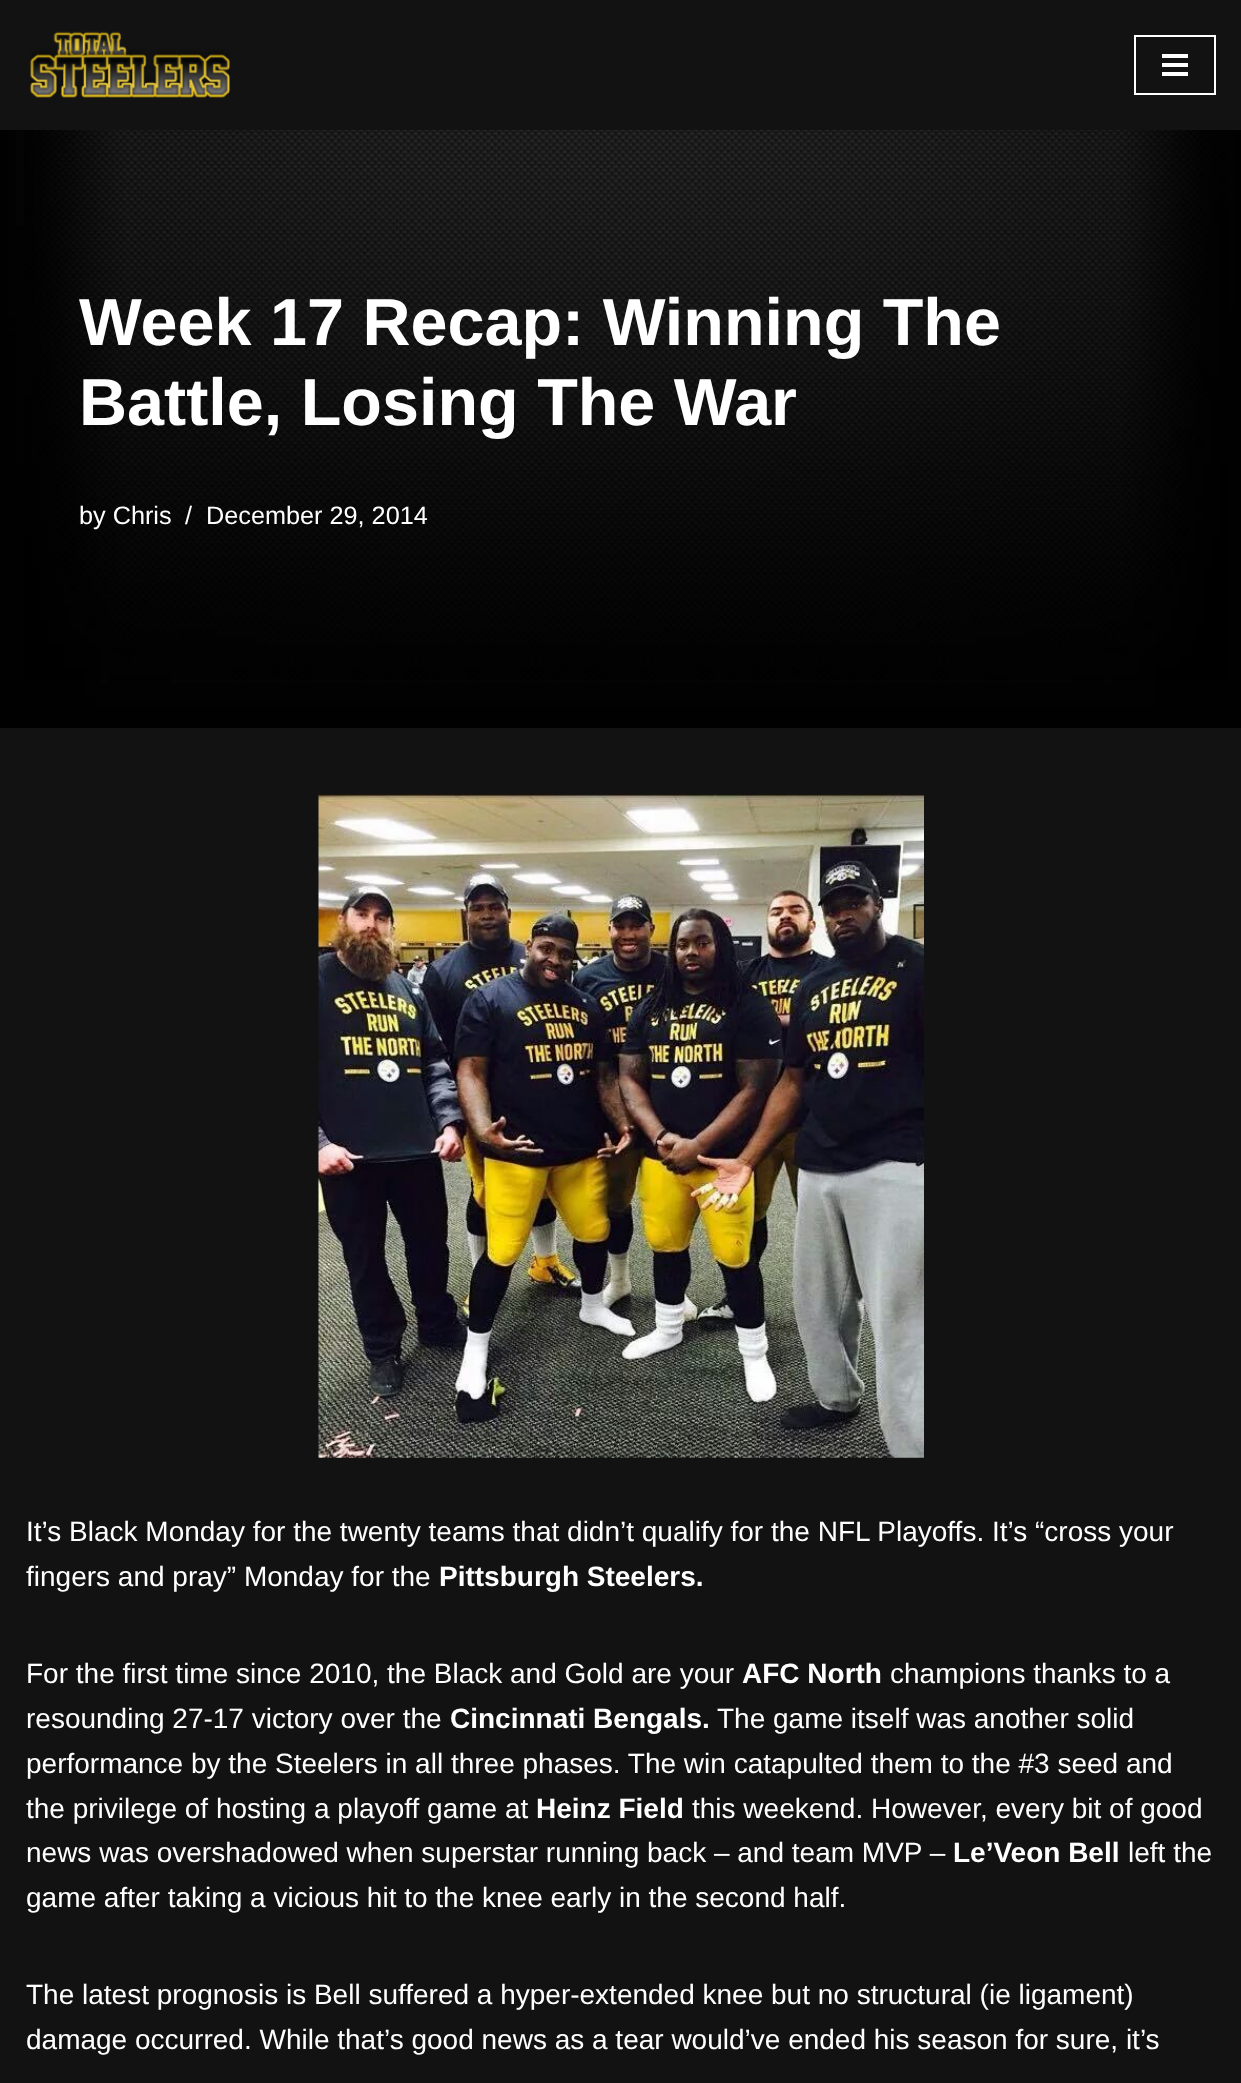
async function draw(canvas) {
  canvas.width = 1241;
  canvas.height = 2083;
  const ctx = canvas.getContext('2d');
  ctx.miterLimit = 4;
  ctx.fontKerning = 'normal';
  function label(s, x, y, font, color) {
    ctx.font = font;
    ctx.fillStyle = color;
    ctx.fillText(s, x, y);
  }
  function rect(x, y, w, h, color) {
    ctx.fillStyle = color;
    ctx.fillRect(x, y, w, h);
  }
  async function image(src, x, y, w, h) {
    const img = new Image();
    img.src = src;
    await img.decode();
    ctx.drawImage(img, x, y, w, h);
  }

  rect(0, 0, 1241, 2083, '#121212');
  await image('assets/img1.png', 0, 130, 1241, 598);
  await image('assets/img2.png', 30, 31, 200, 67);
  ctx.strokeStyle = '#fff';
  ctx.lineWidth = 2;
  ctx.strokeRect(1135, 36, 80, 58);
  rect(1162, 54, 26, 4, '#fff');
  rect(1162, 63, 26, 4, '#fff');
  rect(1162, 72, 26, 4, '#fff');
  rect(24, 130, 1203, 550, '#00000080');
  label('Week 17 Recap: Winning The', 79, 345, 'bold 66.5px Liberation Sans', '#fff');
  label('Battle, Losing The War', 79, 425, 'bold 66.5px Liberation Sans', '#fff');
  label('by Chris', 79, 524, '25.25px Liberation Sans', '#fff');
  label('/', 185, 524, '25.25px Liberation Sans', '#fff');
  label('December 29, 2014', 206, 524, '25.25px Liberation Sans', '#fff');
  await image('assets/img3.png', 318, 794, 606, 664);
  label('It’s Black Monday for the twenty teams that didn’t qualify for the NFL Playoffs. It’s “cross your', 26, 1541, '28px Liberation Sans', '#fff');
  label('fingers and pray” Monday for the', 26, 1586, '28px Liberation Sans', '#fff');
  label('Pittsburgh Steelers.', 439, 1586, 'bold 28px Liberation Sans', '#fff');
  label('For the first time since 2010, the Black and Gold are your', 26, 1683, '28px Liberation Sans', '#fff');
  label('AFC North', 742, 1683, 'bold 28px Liberation Sans', '#fff');
  label('champions thanks to a', 890, 1683, '28px Liberation Sans', '#fff');
  label('resounding 27-17 victory over the', 26, 1728, '28px Liberation Sans', '#fff');
  label('Cincinnati Bengals.', 450, 1728, 'bold 28px Liberation Sans', '#fff');
  label('The game itself was another solid', 717, 1728, '28px Liberation Sans', '#fff');
  label('performance by the Steelers in all three phases. The win catapulted them to the #3 seed and', 26, 1773, '28px Liberation Sans', '#fff');
  label('the privilege of hosting a playoff game at', 26, 1818, '28px Liberation Sans', '#fff');
  label('Heinz Field', 536, 1818, 'bold 28px Liberation Sans', '#fff');
  label('this weekend. However, every bit of good', 692, 1818, '28px Liberation Sans', '#fff');
  label('news was overshadowed when superstar running back – and team MVP –', 26, 1862, '28px Liberation Sans', '#fff');
  label('Le’Veon Bell', 953, 1862, 'bold 28px Liberation Sans', '#fff');
  label('left the', 1128, 1862, '28px Liberation Sans', '#fff');
  label('game after taking a vicious hit to the knee early in the second half.', 26, 1907, '28px Liberation Sans', '#fff');
  label('The latest prognosis is Bell suffered a hyper-extended knee but no structural (ie ligament)', 26, 2004, '28px Liberation Sans', '#fff');
  label('damage occurred. While that’s good news as a tear would’ve ended his season for sure, it’s', 26, 2049, '28px Liberation Sans', '#fff');
}

draw(document.querySelector('canvas'));
